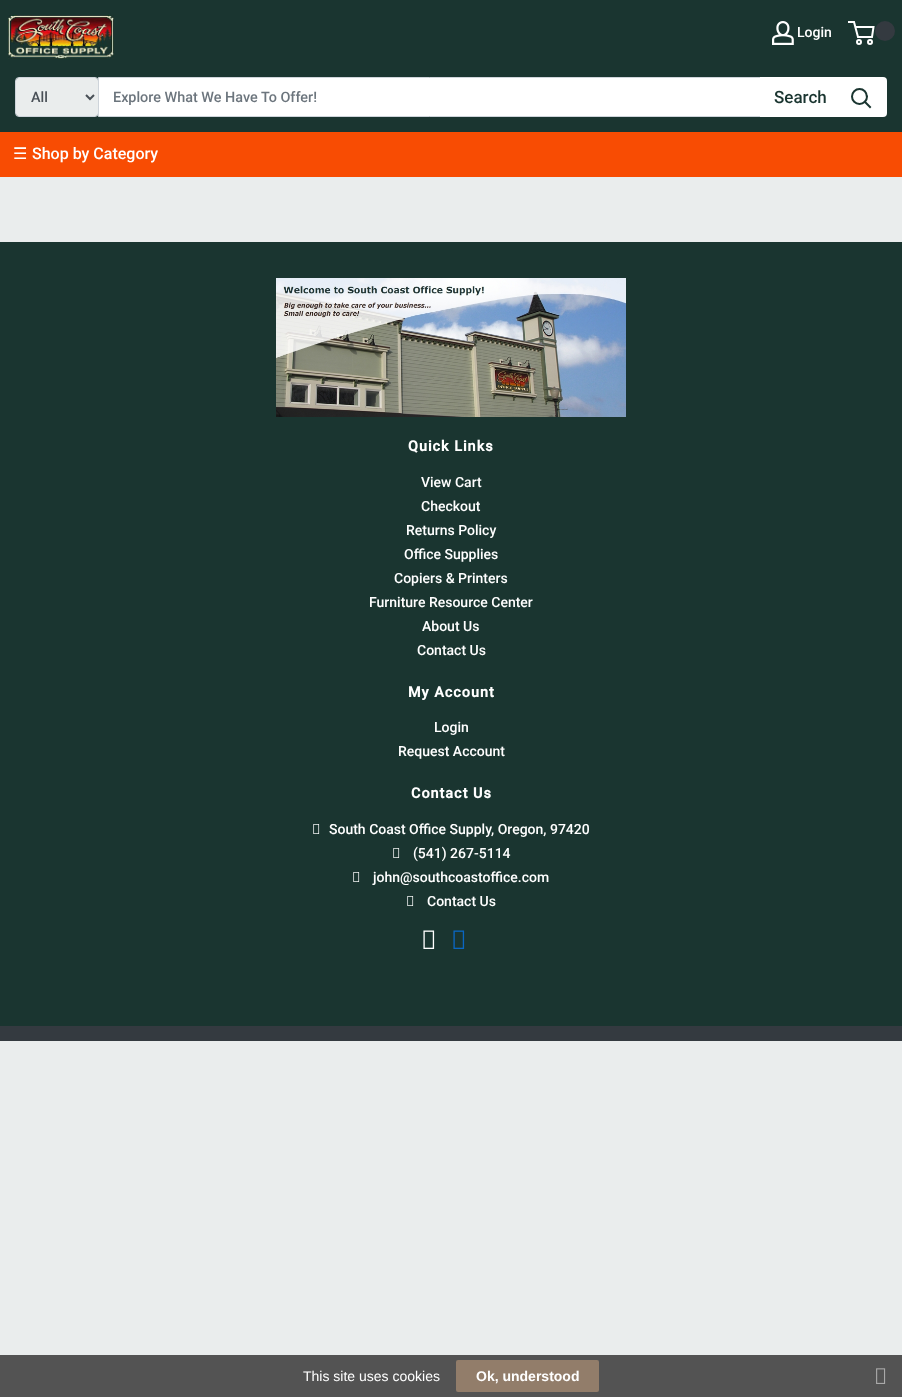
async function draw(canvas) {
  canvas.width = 902;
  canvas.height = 1397;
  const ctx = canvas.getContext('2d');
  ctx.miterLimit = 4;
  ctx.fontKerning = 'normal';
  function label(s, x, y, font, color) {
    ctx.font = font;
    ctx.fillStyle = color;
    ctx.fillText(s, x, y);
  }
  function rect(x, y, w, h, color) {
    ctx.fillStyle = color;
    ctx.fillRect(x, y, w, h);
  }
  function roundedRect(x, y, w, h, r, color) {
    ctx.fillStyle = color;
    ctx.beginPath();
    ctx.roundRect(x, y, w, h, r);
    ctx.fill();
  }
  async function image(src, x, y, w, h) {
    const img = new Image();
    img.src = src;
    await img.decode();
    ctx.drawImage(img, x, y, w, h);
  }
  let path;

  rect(0, 0, 902, 1397, '#eaeded');
  rect(0, 0, 902, 132, '#1a3530');
  await image('assets/img1.png', 772, 21, 22, 24);
  label('Login', 797, 37, '500 14px Roboto', '#fff');
  path = new Path2D('M855.5 27H873.5L872 37H858L854 22H848');
  ctx.strokeStyle = '#fff';
  ctx.lineWidth = 2;
  ctx.stroke(path);
  ctx.fillStyle = '#343a40';
  ctx.beginPath();
  ctx.arc(885, 31, 10, 0, 2 * Math.PI);
  ctx.fill();
  ctx.beginPath();
  ctx.arc(859, 42, 2, 0, 2 * Math.PI);
  ctx.stroke();
  ctx.beginPath();
  ctx.arc(870, 42, 2, 0, 2 * Math.PI);
  ctx.stroke();
  await image('assets/img2.png', 8, 15, 106, 44);
  roundedRect(16, 78, 82, 38, 2.5, '#eaeded');
  ctx.beginPath();
  ctx.roundRect(15.5, 77.5, 83, 39, 3.5);
  ctx.strokeStyle = '#ced4da';
  ctx.lineWidth = 1;
  ctx.stroke();
  path = new Path2D('M86 95L90 99L94 95');
  ctx.strokeStyle = '#495057';
  ctx.lineWidth = 2;
  ctx.stroke(path);
  label('All', 31, 102, '500 14.4px Roboto', '#495057');
  ctx.fillStyle = '#fff';
  ctx.beginPath();
  ctx.rect(98.5, 77.5, 662, 39);
  ctx.fill();
  ctx.strokeStyle = '#ced4da';
  ctx.lineWidth = 1;
  ctx.stroke();
  label('Explore What We Have To Offer!', 113, 102, '500 14.4px Roboto', '#6c757d');
  ctx.fillStyle = '#fff';
  ctx.beginPath();
  ctx.roundRect(760, 77, 127, 40, [0, 4, 4, 0]);
  ctx.fill();
  label('Search', 774, 103, '500 17px Roboto', '#1a3530');
  path = new Path2D('M870 107L865 102');
  ctx.strokeStyle = '#1a3530';
  ctx.lineWidth = 2;
  ctx.lineCap = 'square';
  ctx.stroke(path);
  ctx.beginPath();
  ctx.arc(859.5, 96.5, 7.5, 0, 2 * Math.PI);
  ctx.stroke();
  rect(0, 132, 902, 45, '#f84c03');
  label('☰', 13, 159, '16px DejaVu Sans', '#fff');
  label('Shop by Category', 32, 159, '500 16px Roboto', '#fff');
  rect(0, 242, 902, 784, '#1a3530');
  await image('assets/img3.png', 276, 278, 350, 139);
  ctx.letterSpacing = '1px';
  label('Quick Links', 408, 451, 'bold 14.4px Roboto', '#fff');
  ctx.letterSpacing = '0px';
  label('View Cart', 421, 487, '500 14px Roboto', '#fff');
  label('Checkout', 421, 511, '500 14px Roboto', '#fff');
  label('Returns Policy', 406, 535, '500 14px Roboto', '#fff');
  label('Office Supplies', 404, 559, '500 14px Roboto', '#fff');
  label('Copiers & Printers', 394, 583, '500 14px Roboto', '#fff');
  label('Furniture Resource Center', 369, 607, '500 14px Roboto', '#fff');
  label('About Us', 422, 631, '500 14px Roboto', '#fff');
  label('Contact Us', 417, 655, '500 14px Roboto', '#fff');
  ctx.letterSpacing = '1px';
  label('My Account', 408, 697, 'bold 14.4px Roboto', '#fff');
  ctx.letterSpacing = '0px';
  label('Login', 434, 732, '500 14px Roboto', '#fff');
  label('Request Account', 398, 756, '500 14px Roboto', '#fff');
  ctx.letterSpacing = '1px';
  label('Contact Us', 411, 798, 'bold 14.4px Roboto', '#fff');
  await image('assets/img4.png', 313, 824, 7, 10);
  ctx.letterSpacing = '0px';
  label('South Coast Office Supply, Oregon, 97420', 329, 834, '500 14px Roboto', '#fff');
  await image('assets/img4.png', 393, 848, 7, 10);
  label('(541) 267-5114', 413, 858, '500 14px Roboto', '#fff');
  await image('assets/img4.png', 353, 872, 7, 10);
  label('john@southcoastoffice.com', 373, 882, '500 14px Roboto', '#fff');
  await image('assets/img4.png', 407, 896, 7, 10);
  label('Contact Us', 427, 906, '500 14px Roboto', '#fff');
  await image('assets/img5.png', 423, 930, 12, 19);
  await image('assets/img6.png', 453, 930, 12, 19);
  rect(0, 1026, 902, 15, '#343a40');
  rect(0, 1355, 902, 42, '#535353');
  label('This site uses cookies', 303, 1381, '14px Liberation Sans', '#fff');
  roundedRect(456, 1360, 143, 32, 2, '#927d6a');
  label('Ok, understood', 476, 1381, 'bold 14px Liberation Sans', '#fff');
  await image('assets/img7.png', 876, 1368, 10, 16);
}

draw(document.querySelector('canvas'));
